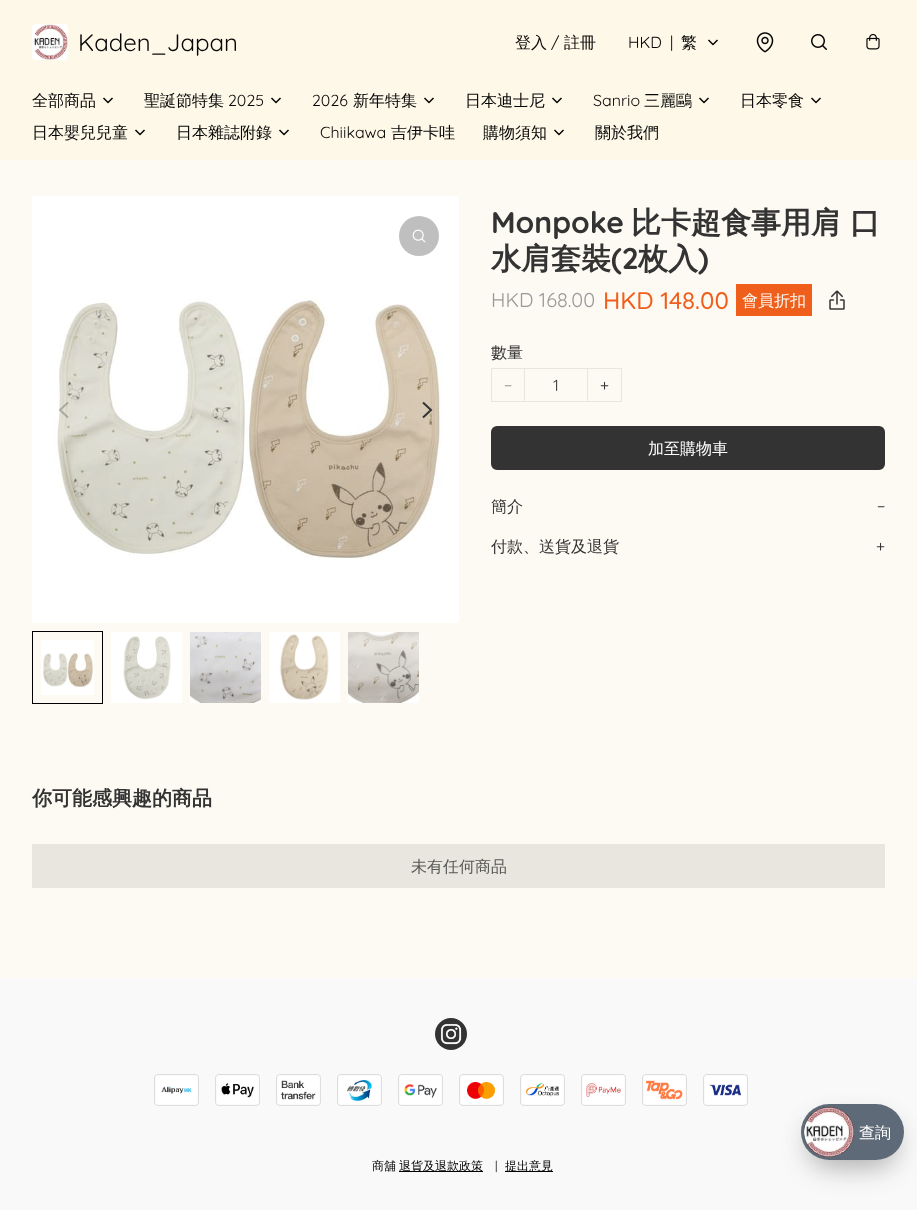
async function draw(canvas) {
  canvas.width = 917;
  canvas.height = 1210;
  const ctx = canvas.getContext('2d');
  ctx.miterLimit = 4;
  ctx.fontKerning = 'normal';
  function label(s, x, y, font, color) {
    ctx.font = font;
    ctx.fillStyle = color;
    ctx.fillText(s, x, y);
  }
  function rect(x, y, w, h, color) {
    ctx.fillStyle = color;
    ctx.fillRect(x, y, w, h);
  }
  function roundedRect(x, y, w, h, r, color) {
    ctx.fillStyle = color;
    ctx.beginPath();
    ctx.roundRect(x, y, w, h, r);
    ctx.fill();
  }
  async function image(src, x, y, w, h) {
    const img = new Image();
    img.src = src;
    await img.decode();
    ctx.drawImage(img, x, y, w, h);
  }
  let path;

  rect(0, 0, 917, 1210, '#fcfaf2');
  rect(0, 0, 917, 160, '#fef8e8');
  await image('assets/img1.png', 32, 24, 36, 36);
  label('Kaden_Japan', 78, 51, '24px Quicksand', '#060606');
  label('登入', 515, 48, '500 16px WenQuanYi Zen Hei', '#060606');
  label('/', 551, 48, '16px Quicksand', '#060606');
  label('註冊', 564, 48, '500 16px WenQuanYi Zen Hei', '#060606');
  label('HKD', 628, 48, '16px Quicksand', '#060606');
  label('|', 670, 48, '16px Quicksand', '#060606');
  label('繁', 681, 48, '500 16px WenQuanYi Zen Hei', '#060606');
  path = new Path2D('M709 40.5L713 44.5L717 40.5');
  ctx.strokeStyle = '#060606';
  ctx.lineWidth = 1.5;
  ctx.lineCap = 'square';
  ctx.lineJoin = 'round';
  ctx.stroke(path);
  await image('assets/img2.png', 756, 32, 18, 21);
  await image('assets/img3.png', 811, 34, 16, 16);
  await image('assets/img4.png', 866, 33, 14, 17);
  label('全部商品', 32, 106, '500 16px WenQuanYi Zen Hei', '#060606');
  path = new Path2D('M104 98.5L108 102.5L112 98.5');
  ctx.stroke(path);
  label('聖誕節特集', 144, 106, '500 16px WenQuanYi Zen Hei', '#060606');
  label('2025', 228, 106, '16px Quicksand', '#060606');
  path = new Path2D('M272 98.5L276 102.5L280 98.5');
  ctx.stroke(path);
  label('2026', 312, 106, '16px Quicksand', '#060606');
  label('新年特集', 353, 106, '500 16px WenQuanYi Zen Hei', '#060606');
  path = new Path2D('M425 98.5L429 102.5L433 98.5');
  ctx.stroke(path);
  label('日本迪士尼', 465, 106, '500 16px WenQuanYi Zen Hei', '#060606');
  path = new Path2D('M553 98.5L557 102.5L561 98.5');
  ctx.stroke(path);
  label('Sanrio', 593, 106, '16px Quicksand', '#060606');
  label('三麗鷗', 644, 106, '500 16px WenQuanYi Zen Hei', '#060606');
  path = new Path2D('M700 98.5L704 102.5L708 98.5');
  ctx.stroke(path);
  label('日本零食', 740, 106, '500 16px WenQuanYi Zen Hei', '#060606');
  path = new Path2D('M812 98.5L816 102.5L820 98.5');
  ctx.stroke(path);
  label('日本嬰兒兒童', 32, 138, '500 16px WenQuanYi Zen Hei', '#060606');
  path = new Path2D('M136 130.5L140 134.5L144 130.5');
  ctx.stroke(path);
  label('日本雜誌附錄', 176, 138, '500 16px WenQuanYi Zen Hei', '#060606');
  path = new Path2D('M280 130.5L284 134.5L288 130.5');
  ctx.stroke(path);
  label('Chiikawa', 320, 138, '16px Quicksand', '#060606');
  label('吉伊卡哇', 391, 138, '500 16px WenQuanYi Zen Hei', '#060606');
  label('購物須知', 483, 138, '500 16px WenQuanYi Zen Hei', '#060606');
  path = new Path2D('M555 130.5L559 134.5L563 130.5');
  ctx.stroke(path);
  label('關於我們', 595, 138, '500 16px WenQuanYi Zen Hei', '#060606');
  await image('assets/img5.png', 32, 196, 427, 427);
  ctx.fillStyle = '#bfbfbf';
  ctx.beginPath();
  ctx.arc(419, 236, 20, 0, 2 * Math.PI);
  ctx.fill();
  await image('assets/img6.png', 412, 229, 14, 14);
  path = new Path2D('M68 402.5L60 410L68 417.5');
  ctx.strokeStyle = '#3333334d';
  ctx.lineWidth = 2;
  ctx.lineCap = 'butt';
  ctx.lineJoin = 'miter';
  ctx.stroke(path);
  path = new Path2D('M423 402.5L431 410L423 417.5');
  ctx.strokeStyle = '#333';
  ctx.stroke(path);
  ctx.strokeStyle = '#000';
  ctx.lineWidth = 1;
  ctx.strokeRect(32.5, 631.5, 70, 72);
  await image('assets/img7.png', 41, 640, 53, 55);
  await image('assets/img8.png', 111, 632, 71, 71);
  await image('assets/img9.png', 190, 632, 71, 71);
  await image('assets/img10.png', 269, 632, 71, 71);
  await image('assets/img11.png', 348, 632, 71, 71);
  label('Monpoke', 491, 233, 'bold 30px Quicksand', '#333');
  label('比卡超食事用肩 口', 631, 233, 'bold 30px WenQuanYi Zen Hei', '#333');
  label('水肩套裝', 491, 269, 'bold 30px WenQuanYi Zen Hei', '#333');
  label('(2', 611, 269, 'bold 30px Quicksand', '#333');
  label('枚入', 638, 269, 'bold 30px WenQuanYi Zen Hei', '#333');
  label(')', 698, 269, 'bold 30px Quicksand', '#333');
  label('HKD 168.00', 491, 307, '20px Quicksand', '#999');
  label('HKD 148.00', 603, 309, '500 24px Quicksand', '#f05e1c');
  rect(736, 284, 76, 32, '#f05e1c');
  label('會員折扣', 742, 306, '500 16px WenQuanYi Zen Hei', '#fcfaf2');
  await image('assets/img12.png', 829, 290, 16, 20);
  label('數量', 491, 358, '500 16px WenQuanYi Zen Hei', '#333');
  ctx.strokeStyle = '#e8e6df';
  ctx.strokeRect(491.5, 368.5, 130, 33);
  label('−', 504, 391, '16px Quicksand', '#989793');
  rect(587, 369, 1, 32, '#e8e6df');
  rect(524, 369, 1, 32, '#e8e6df');
  label('1', 553, 391, '16px Quicksand', '#333');
  label('+', 600, 391, '16px Quicksand', '#333');
  ctx.beginPath();
  ctx.roundRect(492, 427, 392, 42, 5);
  ctx.fill();
  ctx.strokeStyle = '#333';
  ctx.lineWidth = 2;
  ctx.stroke();
  label('加至購物車', 648, 454, '500 16px WenQuanYi Zen Hei', '#fff');
  label('簡介', 491, 512, '500 16px WenQuanYi Zen Hei', '#333');
  label('−', 877, 512, '16px Quicksand', '#333');
  label('付款、送貨及退貨', 491, 552, '500 16px WenQuanYi Zen Hei', '#333');
  label('+', 876, 552, '16px Quicksand', '#333');
  label('你可能感興趣的商品', 32, 805, 'bold 20px WenQuanYi Zen Hei', '#333');
  rect(32, 844, 853, 44, '#e8e6df');
  label('未有任何商品', 411, 872, '500 16px WenQuanYi Zen Hei', '#575755');
  rect(0, 978, 917, 232, '#f9f9f9');
  ctx.fillStyle = '#333';
  ctx.beginPath();
  ctx.arc(451, 1034, 16, 0, 2 * Math.PI);
  ctx.fill();
  await image('assets/img13.png', 440, 1023, 22, 22);
  await image('assets/img14.png', 154, 1074, 45, 32);
  await image('assets/img15.png', 215, 1074, 45, 32);
  await image('assets/img16.png', 276, 1074, 45, 32);
  await image('assets/img17.png', 337, 1074, 45, 32);
  await image('assets/img18.png', 398, 1074, 45, 32);
  await image('assets/img19.png', 459, 1074, 45, 32);
  await image('assets/img20.png', 520, 1074, 45, 32);
  await image('assets/img21.png', 581, 1074, 45, 32);
  await image('assets/img22.png', 642, 1074, 45, 32);
  await image('assets/img23.png', 703, 1074, 45, 32);
  label('商舖', 372, 1170, '500 12px WenQuanYi Zen Hei', '#000');
  rect(399, 1171, 84, 1, '#000');
  label('退貨及退款政策', 399, 1170, '500 12px WenQuanYi Zen Hei', '#000');
  label('|', 495, 1170, '12px Quicksand', '#000');
  rect(505, 1171, 48, 1, '#000');
  label('提出意見', 505, 1170, '500 12px WenQuanYi Zen Hei', '#000');
  ctx.fillStyle = '#0000004d';
  ctx.filter = 'blur(15px)';
  ctx.beginPath();
  ctx.roundRect(811, 1129, 83, 36, 18);
  ctx.fill();
  ctx.filter = 'none';
  ctx.fillStyle = '#0000000d';
  ctx.filter = 'blur(10px)';
  ctx.beginPath();
  ctx.roundRect(801, 1109, 103, 56, 28);
  ctx.fill();
  ctx.filter = 'none';
  roundedRect(801, 1104, 103, 56, 28, '#5f6a78');
  await image('assets/img24.png', 804, 1107, 50, 50);
  label('查詢', 859, 1138, '500 16px WenQuanYi Zen Hei', '#fff');
}

draw(document.querySelector('canvas'));
